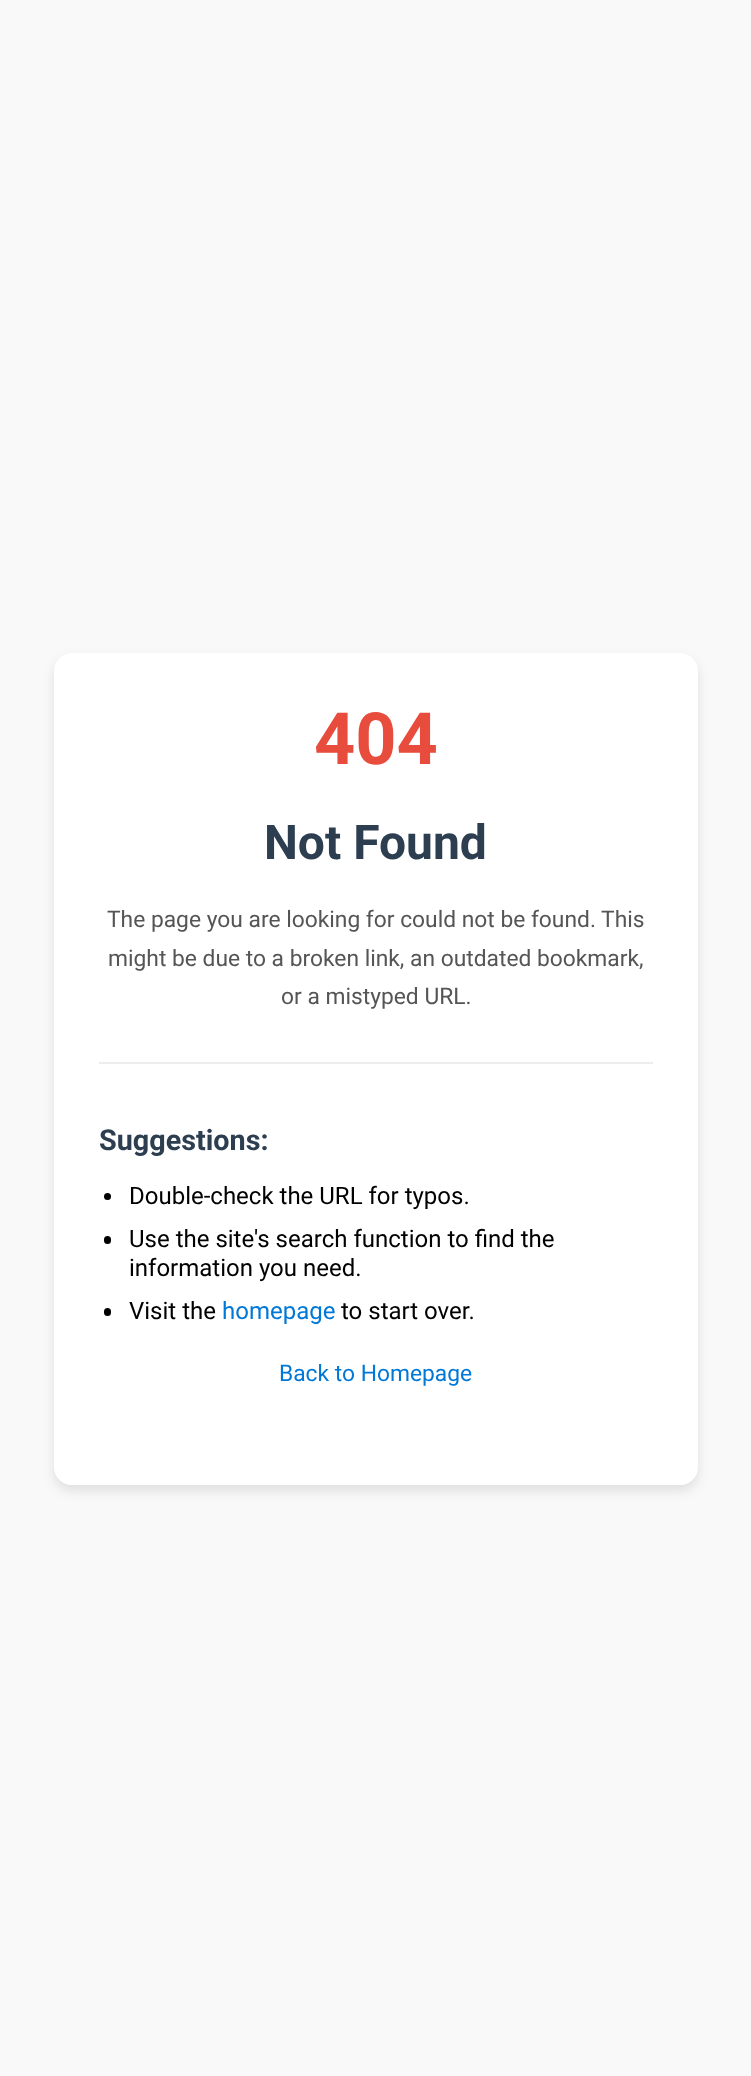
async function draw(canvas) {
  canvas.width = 751;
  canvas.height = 2076;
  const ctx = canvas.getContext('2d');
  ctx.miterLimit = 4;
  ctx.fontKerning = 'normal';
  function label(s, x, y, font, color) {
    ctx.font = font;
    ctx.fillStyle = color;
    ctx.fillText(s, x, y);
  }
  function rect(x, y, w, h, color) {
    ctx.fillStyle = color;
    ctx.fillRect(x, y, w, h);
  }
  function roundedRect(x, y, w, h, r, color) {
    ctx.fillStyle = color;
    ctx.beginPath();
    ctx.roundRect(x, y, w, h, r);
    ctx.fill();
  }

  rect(0, 0, 751, 2076, '#f9f9f9');
  ctx.fillStyle = '#0000001a';
  ctx.filter = 'blur(6px)';
  ctx.beginPath();
  ctx.roundRect(54, 659, 644, 832, 18);
  ctx.fill();
  ctx.filter = 'none';
  roundedRect(54, 653, 644, 832, 18, '#fff');
  label('404', 314, 764, 'bold 72px Roboto', '#e74c3c');
  label('Not Found', 264, 859, 'bold 48px Roboto', '#2c3e50');
  label('The page you are looking for could not be found. This', 107, 927, '22.8px Roboto', '#555');
  label('might be due to a broken link, an outdated bookmark,', 108, 966, '22.8px Roboto', '#555');
  label('or a mistyped URL.', 281, 1004, '22.8px Roboto', '#555');
  rect(99, 1062, 554, 2, '#ededed');
  label('Suggestions:', 99, 1150, 'bold 28.75px Roboto', '#2c3e50');
  ctx.fillStyle = '#000';
  ctx.beginPath();
  ctx.arc(107.5, 1196.5, 3.5, 0, 2 * Math.PI);
  ctx.fill();
  label('Double-check the URL for typos.', 129, 1204, '24px Roboto', '#000');
  roundedRect(104, 1236, 7, 8, 3.5, '#000');
  label('Use the site\'s search function to find the', 129, 1247, '24px Roboto', '#000');
  label('information you need.', 129, 1276, '24px Roboto', '#000');
  roundedRect(104, 1308, 7, 8, 3.5, '#000');
  label('Visit the', 129, 1319, '24px Roboto', '#000');
  label('homepage', 222, 1319, '24px Roboto', '#0078d7');
  label('to start over.', 341, 1319, '24px Roboto', '#000');
  label('Back to Homepage', 279, 1381, '22.8px Roboto', '#0078d7');
}

draw(document.querySelector('canvas'));
